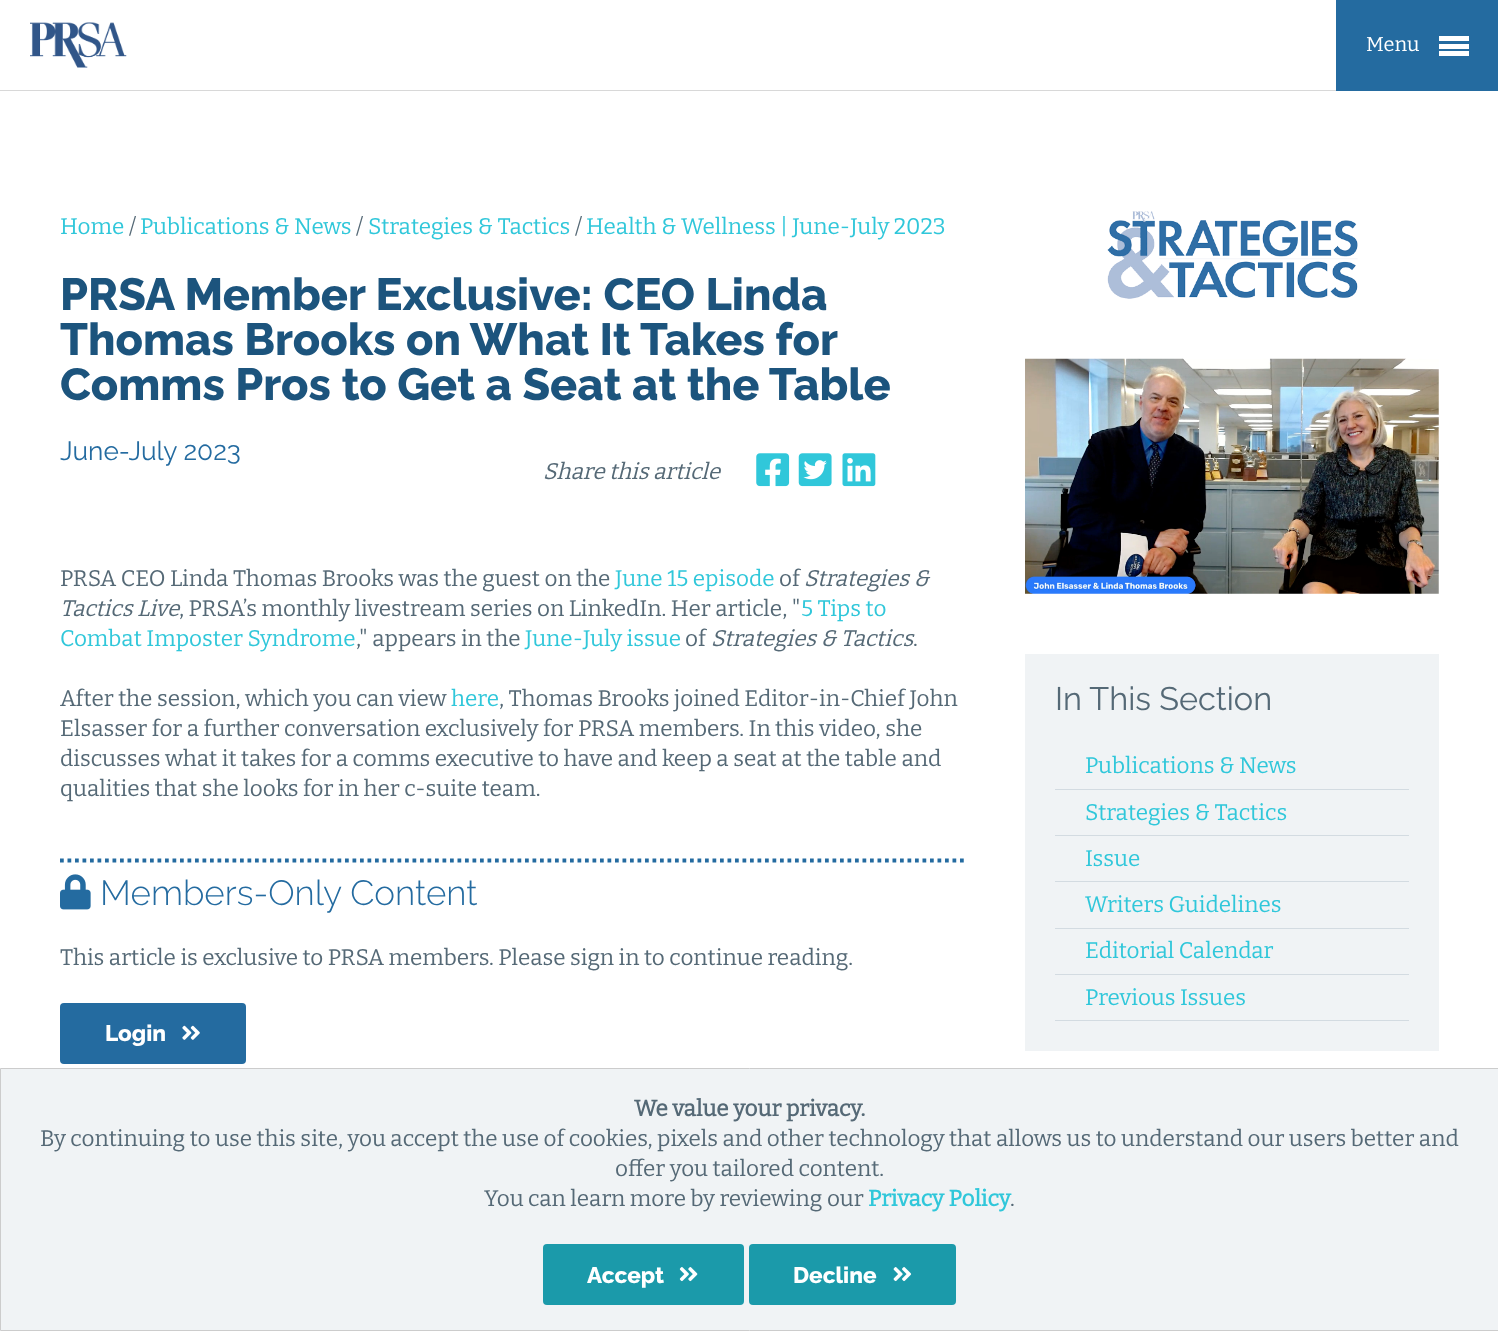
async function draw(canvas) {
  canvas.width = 1498;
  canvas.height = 1331;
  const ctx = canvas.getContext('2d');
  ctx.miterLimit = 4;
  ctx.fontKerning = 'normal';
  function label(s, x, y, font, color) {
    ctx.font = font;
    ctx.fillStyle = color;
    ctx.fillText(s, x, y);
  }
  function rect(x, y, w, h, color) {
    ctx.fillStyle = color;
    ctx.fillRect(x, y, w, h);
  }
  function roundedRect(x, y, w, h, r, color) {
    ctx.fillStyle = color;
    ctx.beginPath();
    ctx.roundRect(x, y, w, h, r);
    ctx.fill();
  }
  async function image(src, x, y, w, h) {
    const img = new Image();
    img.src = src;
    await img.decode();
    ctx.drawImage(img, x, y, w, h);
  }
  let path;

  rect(0, 0, 1498, 1331, '#fff');
  rect(0, 90, 1336, 1, '#d8d8d8');
  await image('assets/img1.png', 30, 22, 97, 46);
  rect(1336, 0, 162, 91, '#246ba0');
  label('Menu', 1366, 51, '100 20px Bitter', '#fff');
  rect(1439, 36, 30, 5, '#fff');
  rect(1439, 44, 30, 5, '#fff');
  rect(1439, 51, 30, 5, '#fff');
  label('Home', 60, 234, '100 22.5px Bitter', '#30c7da');
  label('/', 129, 234, '100 22.5px Bitter', '#556976');
  label('Publications & News', 140, 234, '100 22.5px Bitter', '#30c7da');
  label('/', 356, 234, '100 22.5px Bitter', '#556976');
  label('Strategies & Tactics', 368, 234, '100 22.5px Bitter', '#30c7da');
  label('/', 575, 234, '100 22.5px Bitter', '#556976');
  label('Health & Wellness | June-July 2023', 586, 234, '100 22.5px Bitter', '#30c7da');
  label('PRSA Member Exclusive: CEO Linda', 60, 310, '800 45px Raleway', '#1c547d');
  label('Thomas Brooks on What It Takes for', 60, 355, '800 45px Raleway', '#1c547d');
  label('Comms Pros to Get a Seat at the Table', 60, 400, '800 45px Raleway', '#1c547d');
  label('June-July 2023', 60, 460, '26.25px Raleway', '#246ba0');
  label('Share this article', 543, 479, 'italic 100 22.5px Bitter', '#556976');
  await image('assets/img2.png', 756, 453, 34, 34);
  await image('assets/img3.png', 798, 453, 34, 34);
  await image('assets/img4.png', 842, 453, 34, 34);
  label('PRSA CEO Linda Thomas Brooks was the guest on the', 60, 586, '100 22.5px Bitter', '#556976');
  label('June 15 episode', 615, 586, '100 22.5px Bitter', '#30c7da');
  label('of', 779, 586, '100 22.5px Bitter', '#556976');
  label('Strategies &', 804, 586, 'italic 100 22.5px Bitter', '#556976');
  label('Tactics Live', 60, 616, 'italic 100 22.5px Bitter', '#556976');
  label(', PRSA’s monthly livestream series on LinkedIn. Her article, "', 179, 616, '100 22.5px Bitter', '#556976');
  label('5 Tips to', 801, 616, '100 22.5px Bitter', '#30c7da');
  label('Combat Imposter Syndrome', 60, 646, '100 22.5px Bitter', '#30c7da');
  label('," appears in the', 356, 646, '100 22.5px Bitter', '#556976');
  label('June-July issue', 525, 646, '100 22.5px Bitter', '#30c7da');
  label('of', 685, 646, '100 22.5px Bitter', '#556976');
  label('Strategies & Tactics', 711, 646, 'italic 100 22.5px Bitter', '#556976');
  label('.', 913, 646, '100 22.5px Bitter', '#556976');
  label('After the session, which you can view', 60, 706, '100 22.5px Bitter', '#556976');
  label('here', 451, 706, '100 22.5px Bitter', '#30c7da');
  label(', Thomas Brooks joined Editor-in-Chief John', 499, 706, '100 22.5px Bitter', '#556976');
  label('Elsasser for a further conversation exclusively for PRSA members. In this video, she', 60, 736, '100 22.5px Bitter', '#556976');
  label('discusses what it takes for a comms executive to have and keep a seat at the table and', 60, 766, '100 22.5px Bitter', '#556976');
  label('qualities that she looks for in her c-suite team.', 60, 796, '100 22.5px Bitter', '#556976');
  path = new Path2D('M60 860.5H965');
  ctx.strokeStyle = '#246ba0';
  ctx.lineWidth = 3.8;
  ctx.setLineDash([3.75, 3.75]);
  ctx.stroke(path);
  await image('assets/img5.png', 60, 874, 31, 36);
  label('Members-Only Content', 100, 905, '300 35px Raleway', '#246ba0');
  label('This article is exclusive to PRSA members. Please sign in to continue reading.', 60, 965, '100 22.5px Bitter', '#556976');
  roundedRect(60, 1003, 186, 61, 4, '#246ba0');
  label('Login', 105, 1041, '800 22.5px Raleway', '#fff');
  await image('assets/img6.png', 182, 1025, 18, 15);
  await image('assets/img7.png', 1107, 211, 251, 88);
  await image('assets/img8.png', 1025, 358, 414, 236);
  rect(1025, 654, 414, 397, '#f0f3f5');
  label('In This Section', 1055, 710, '32.5px Raleway', '#556976');
  rect(1055, 789, 354, 1, '#d3dbe1');
  label('Publications & News', 1085, 773, '100 22.5px Bitter', '#30c7da');
  rect(1055, 835, 354, 1, '#d3dbe1');
  label('Strategies & Tactics', 1085, 820, '100 22.5px Bitter', '#30c7da');
  rect(1055, 881, 354, 1, '#d3dbe1');
  label('Issue', 1085, 866, '100 22.5px Bitter', '#30c7da');
  rect(1055, 928, 354, 1, '#d3dbe1');
  label('Writers Guidelines', 1085, 912, '100 22.5px Bitter', '#30c7da');
  rect(1055, 974, 354, 1, '#d3dbe1');
  label('Editorial Calendar', 1085, 958, '100 22.5px Bitter', '#30c7da');
  rect(1055, 1020, 354, 1, '#d3dbe1');
  label('Previous Issues', 1085, 1005, '100 22.5px Bitter', '#30c7da');
  ctx.fillStyle = '#f0f3f5';
  ctx.beginPath();
  ctx.rect(0.5, 1068.5, 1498, 262);
  ctx.fill();
  ctx.strokeStyle = '#ccc';
  ctx.lineWidth = 1;
  ctx.setLineDash([]);
  ctx.stroke();
  label('We value your privacy.', 634, 1116, 'bold 22.5px Bitter', '#556976');
  label('By continuing to use this site, you accept the use of cookies, pixels and other technology that allows us to understand our users better and', 40, 1146, '100 22.5px Bitter', '#556976');
  label('offer you tailored content.', 615, 1176, '100 22.5px Bitter', '#556976');
  label('You can learn more by reviewing our', 484, 1206, '100 22.5px Bitter', '#556976');
  label('Privacy Policy', 868, 1206, 'bold 22.5px Bitter', '#30c7da');
  label('.', 1010, 1206, '100 22.5px Bitter', '#556976');
  roundedRect(543, 1244, 201, 61, 4, '#1b9aaa');
  label('Accept', 587, 1283, '800 22.5px Raleway', '#fff');
  await image('assets/img9.png', 679, 1267, 19, 15);
  roundedRect(749, 1244, 207, 61, 4, '#1b9aaa');
  label('Decline', 793, 1283, '800 22.5px Raleway', '#fff');
  await image('assets/img10.png', 893, 1267, 19, 15);
}

draw(document.querySelector('canvas'));
